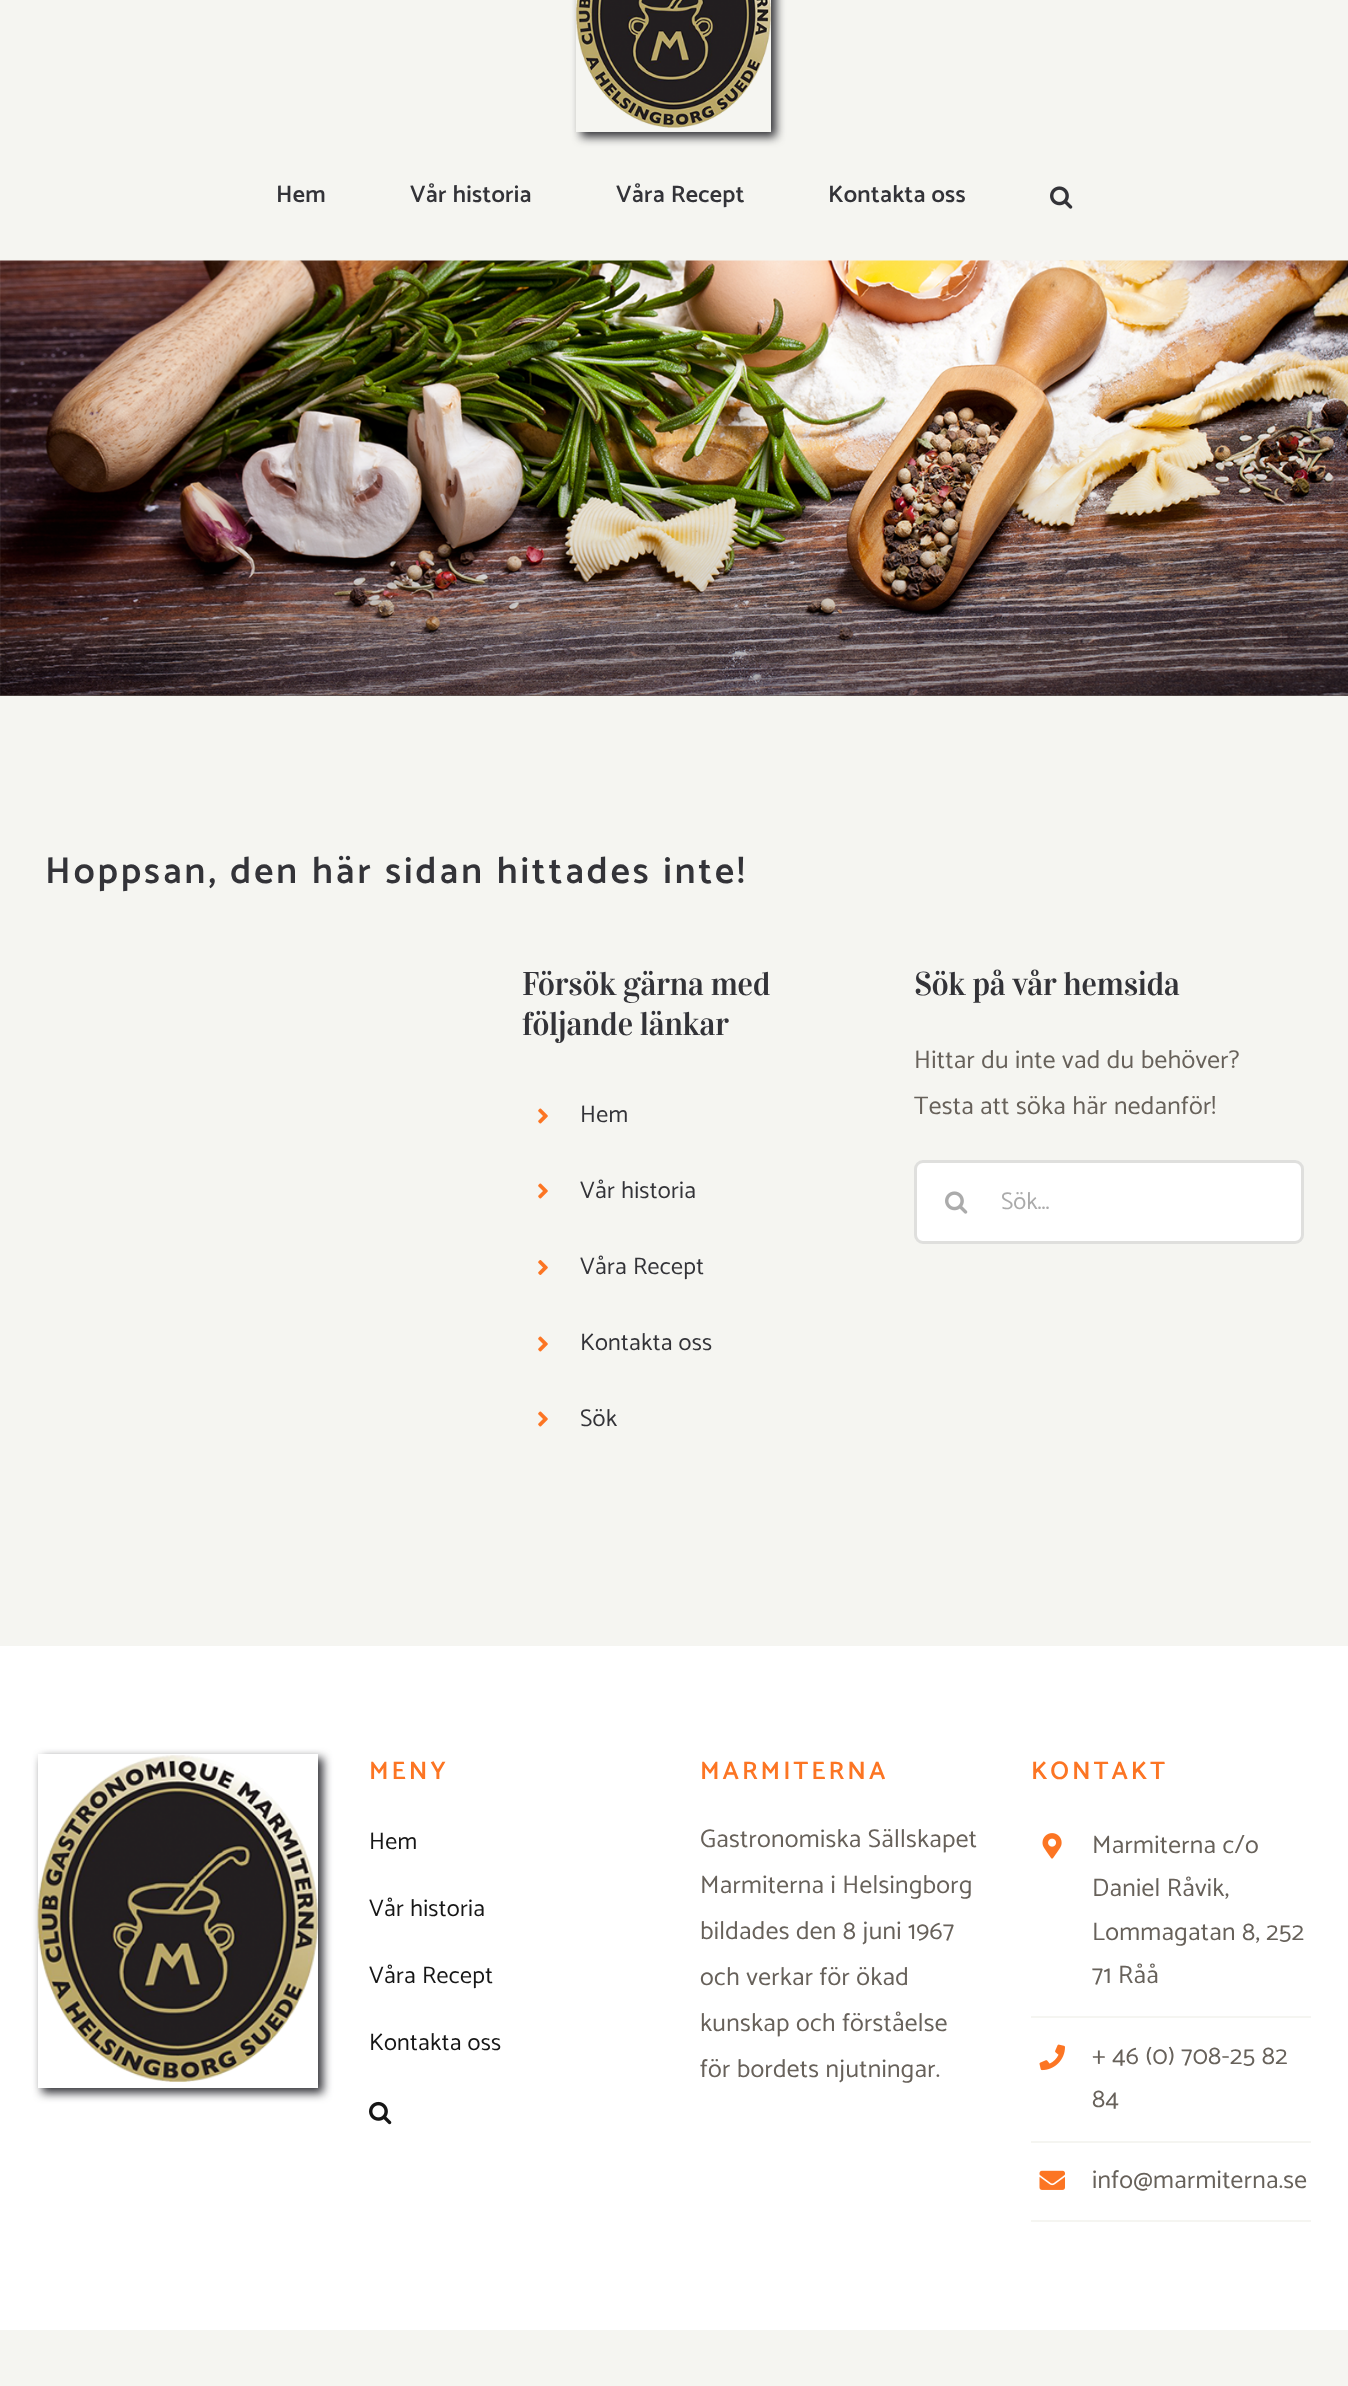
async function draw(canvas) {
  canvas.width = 1348;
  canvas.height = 2386;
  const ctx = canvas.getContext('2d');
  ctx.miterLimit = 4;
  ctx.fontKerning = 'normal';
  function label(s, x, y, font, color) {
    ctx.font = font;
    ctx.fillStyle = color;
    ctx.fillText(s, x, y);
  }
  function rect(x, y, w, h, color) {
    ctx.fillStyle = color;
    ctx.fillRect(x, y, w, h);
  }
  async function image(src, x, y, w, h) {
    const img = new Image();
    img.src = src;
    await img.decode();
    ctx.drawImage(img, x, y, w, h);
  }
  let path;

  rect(0, 0, 1348, 2386, '#f5f5f1');
  ctx.save();
  path = new Path2D('M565 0H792V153H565ZM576-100H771V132H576Z');
  ctx.clip(path, 'evenodd');
  ctx.fillStyle = '#333338';
  ctx.filter = 'blur(5px)';
  ctx.beginPath();
  ctx.rect(581, -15, 195, 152);
  ctx.fill();
  ctx.filter = 'none';
  ctx.restore();
  await image('assets/img1.png', 576, 0, 195, 128);
  ctx.letterSpacing = '0.3px';
  label('Hem', 276, 202, '600 24px Catamaran', '#333338');
  label('Vår historia', 410, 202, '600 24px Catamaran', '#333338');
  label('Våra Recept', 616, 202, '600 24px Catamaran', '#333338');
  label('Kontakta oss', 828, 202, '600 24px Catamaran', '#333338');
  await image('assets/img2.png', 1050, 186, 23, 23);
  rect(0, 695, 1348, 1, '#67615a');
  await image('assets/img3.png', 0, 260, 1348, 436);
  ctx.letterSpacing = '3px';
  label('Hoppsan, den här sidan hittades inte!', 45, 883, '600 37.5px Catamaran', '#333338');
  ctx.letterSpacing = '-0.5px';
  label('Försök gärna med', 522, 995, '33px Vidaloka', '#333338');
  label('följande länkar', 522, 1035, '33px Vidaloka', '#333338');
  await image('assets/img4.png', 538, 1108, 10, 16);
  ctx.letterSpacing = '0.3px';
  label('Hem', 580, 1122, '24px Catamaran', '#333338');
  await image('assets/img4.png', 538, 1183, 10, 16);
  label('Vår historia', 580, 1198, '24px Catamaran', '#333338');
  await image('assets/img5.png', 538, 1260, 10, 15);
  label('Våra Recept', 580, 1274, '24px Catamaran', '#333338');
  await image('assets/img4.png', 538, 1336, 10, 16);
  label('Kontakta oss', 580, 1350, '24px Catamaran', '#333338');
  await image('assets/img4.png', 538, 1411, 10, 16);
  label('Sök', 580, 1426, '24px Catamaran', '#333338');
  ctx.letterSpacing = '-0.5px';
  label('Sök på vår hemsida', 914, 995, '33px Vidaloka', '#333338');
  ctx.letterSpacing = '0.3px';
  label('Hittar du inte vad du behöver?', 914, 1068, '25.5px Catamaran', '#67615a');
  label('Testa att söka här nedanför!', 914, 1114, '25.5px Catamaran', '#67615a');
  ctx.fillStyle = '#fff';
  ctx.beginPath();
  ctx.roundRect(915.5, 1161.5, 387, 81, 7.5);
  ctx.fill();
  ctx.strokeStyle = '#dfdfdd';
  ctx.lineWidth = 3;
  ctx.stroke();
  await image('assets/img6.png', 945, 1191, 23, 23);
  ctx.letterSpacing = '0px';
  label('Sök...', 1001, 1209, '24px Catamaran', '#ababab');
  rect(0, 1646, 1348, 684, '#fff');
  ctx.save();
  path = new Path2D('M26 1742H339V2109H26ZM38 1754H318V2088H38Z');
  ctx.clip(path, 'evenodd');
  ctx.fillStyle = '#333338';
  ctx.filter = 'blur(5px)';
  ctx.beginPath();
  ctx.rect(42, 1758, 281, 335);
  ctx.fill();
  ctx.filter = 'none';
  ctx.restore();
  await image('assets/img7.png', 37, 1755, 281, 327);
  ctx.letterSpacing = '3px';
  label('MENY', 369, 1779, '600 25.5px Catamaran', '#fc7523');
  ctx.letterSpacing = '0.3px';
  label('Hem', 369, 1849, '24px Catamaran', '#161616');
  label('Vår historia', 369, 1916, '24px Catamaran', '#161616');
  label('Våra Recept', 369, 1983, '24px Catamaran', '#161616');
  label('Kontakta oss', 369, 2050, '24px Catamaran', '#161616');
  await image('assets/img8.png', 369, 2101, 23, 24);
  ctx.letterSpacing = '3px';
  label('MARMITERNA', 700, 1779, '600 25.5px Catamaran', '#fc7523');
  ctx.letterSpacing = '0.3px';
  label('Gastronomiska Sällskapet', 700, 1847, '25.5px Catamaran', '#67615a');
  label('Marmiterna i Helsingborg', 700, 1893, '25.5px Catamaran', '#67615a');
  label('bildades den 8 juni 1967', 700, 1939, '25.5px Catamaran', '#67615a');
  label('och verkar för ökad', 700, 1985, '25.5px Catamaran', '#67615a');
  label('kunskap och förståelse', 700, 2031, '25.5px Catamaran', '#67615a');
  label('för bordets njutningar.', 700, 2077, '25.5px Catamaran', '#67615a');
  ctx.letterSpacing = '3px';
  label('KONTAKT', 1031, 1779, '600 25.5px Catamaran', '#fc7523');
  rect(1031, 2016, 280, 2, '#f5f5f1');
  await image('assets/img9.png', 1042, 1833, 20, 26);
  ctx.letterSpacing = '0.3px';
  label('Marmiterna c/o', 1092, 1853, '25.5px Catamaran', '#67615a');
  label('Daniel Råvik,', 1092, 1896, '25.5px Catamaran', '#67615a');
  label('Lommagatan 8, 252', 1092, 1940, '25.5px Catamaran', '#67615a');
  label('71 Råå', 1092, 1983, '25.5px Catamaran', '#67615a');
  rect(1031, 2141, 280, 2, '#f5f5f1');
  await image('assets/img10.png', 1039, 2044, 26, 27);
  label('+ 46 (0) 708-25 82', 1092, 2064, '25.5px Catamaran', '#67615a');
  label('84', 1092, 2107, '25.5px Catamaran', '#67615a');
  rect(1031, 2220, 280, 2, '#f5f5f1');
  await image('assets/img11.png', 1039, 2170, 26, 20);
  label('info@marmiterna.se', 1092, 2188, '25.5px Catamaran', '#67615a');
}

draw(document.querySelector('canvas'));
